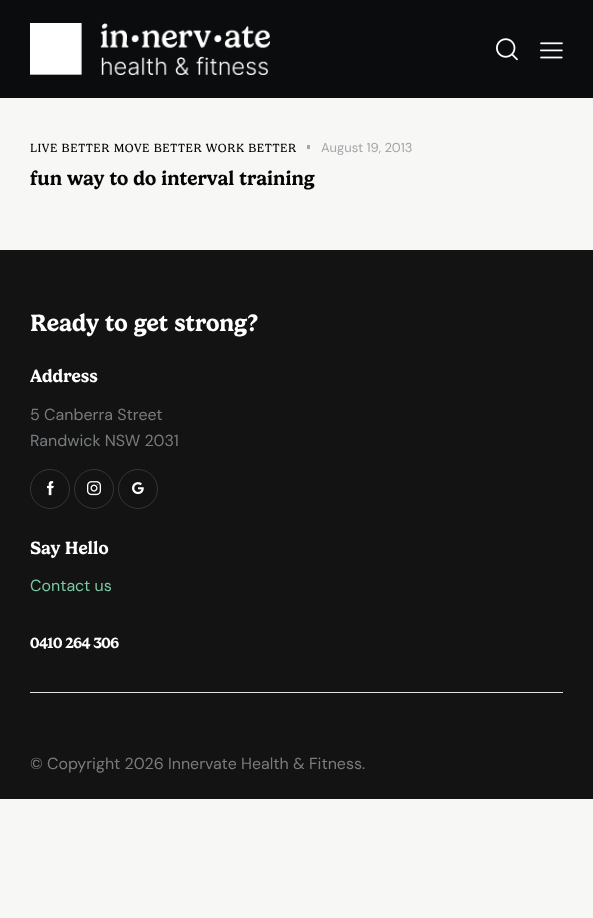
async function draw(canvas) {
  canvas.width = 593;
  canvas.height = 918;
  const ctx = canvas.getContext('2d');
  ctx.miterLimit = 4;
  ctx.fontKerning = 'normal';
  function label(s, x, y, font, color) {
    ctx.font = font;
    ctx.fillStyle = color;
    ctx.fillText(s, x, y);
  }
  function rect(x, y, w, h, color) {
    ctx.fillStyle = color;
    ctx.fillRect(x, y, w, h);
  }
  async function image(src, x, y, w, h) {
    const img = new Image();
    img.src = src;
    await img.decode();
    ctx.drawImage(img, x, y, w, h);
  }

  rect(0, 0, 593, 918, '#f7f7f6');
  rect(0, 0, 593, 98, '#0b0c0e');
  await image('assets/img1.png', 30, 23, 240, 52);
  await image('assets/img2.png', 496, 38, 22, 23);
  await image('assets/img3.png', 540, 42, 23, 17);
  ctx.letterSpacing = '0.6px';
  label('LIVE BETTER MOVE BETTER WORK BETTER', 30, 152, '12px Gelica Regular', '#050606');
  rect(307, 145, 3, 4, '#a5a6aa');
  ctx.letterSpacing = '0px';
  label('August 19, 2013', 321, 152, '13px DM Sans', '#a5a6aa');
  label('fun way to do interval training', 30, 185, '600 20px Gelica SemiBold', '#050606');
  rect(0, 250, 593, 549, '#131313');
  label('Ready to get strong?', 30, 331, '600 24px Gelica SemiBold', '#fff');
  label('Address', 30, 382, '600 18px Gelica SemiBold', '#fff');
  label('5 Canberra Street', 30, 420, '16px DM Sans', '#797c7f');
  label('Randwick NSW 2031', 30, 446, '16px DM Sans', '#797c7f');
  ctx.beginPath();
  ctx.arc(50, 489, 19.5, 0, 2 * Math.PI);
  ctx.strokeStyle = '#363636';
  ctx.stroke();
  await image('assets/img4.png', 47, 481, 7, 15);
  ctx.beginPath();
  ctx.arc(94, 489, 19.5, 0, 2 * Math.PI);
  ctx.stroke();
  await image('assets/img5.png', 87, 481, 14, 15);
  ctx.beginPath();
  ctx.arc(138, 489, 19.5, 0, 2 * Math.PI);
  ctx.stroke();
  await image('assets/img6.png', 132, 482, 12, 13);
  label('Say Hello', 30, 554, '600 18px Gelica SemiBold', '#fff');
  label('Contact us', 30, 591, '16px DM Sans', '#7ac8a3');
  ctx.letterSpacing = '-0.5px';
  label('0410 264 306', 30, 648, '600 15px Gelica SemiBold', '#fff');
  rect(30, 692, 533, 1, '#e3e3df');
  ctx.letterSpacing = '0px';
  label('© Copyright 2026 Innervate Health & Fitness.', 30, 769, '16px DM Sans', '#797c7f');
}

draw(document.querySelector('canvas'));
